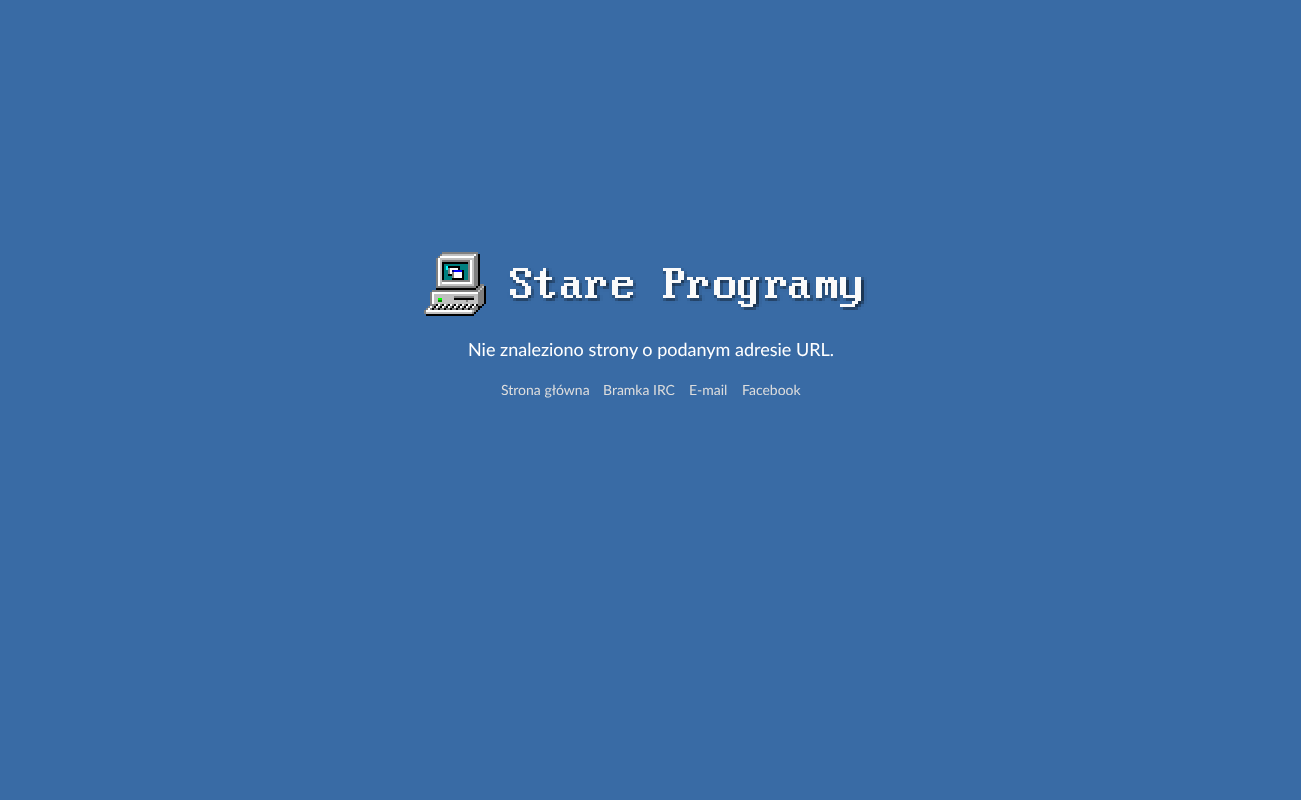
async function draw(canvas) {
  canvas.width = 1301;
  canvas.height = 800;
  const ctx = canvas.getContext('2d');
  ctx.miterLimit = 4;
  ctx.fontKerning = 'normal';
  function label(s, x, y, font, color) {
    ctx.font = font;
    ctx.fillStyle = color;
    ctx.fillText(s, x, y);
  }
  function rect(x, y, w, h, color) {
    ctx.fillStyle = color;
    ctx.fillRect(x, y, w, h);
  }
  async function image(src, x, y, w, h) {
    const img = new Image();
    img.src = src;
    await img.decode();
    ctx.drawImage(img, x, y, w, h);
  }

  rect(0, 0, 1301, 800, '#396ba5');
  await image('assets/img1.png', 424, 252, 443, 64);
  label('Nie znaleziono strony o podanym adresie URL.', 468, 356, '18px Lato', '#fff');
  label('Strona główna', 501, 395, '14px Lato', '#ddd');
  label('Bramka IRC', 603, 395, '14px Lato', '#ddd');
  label('E-mail', 689, 395, '14px Lato', '#ddd');
  label('Facebook', 742, 395, '14px Lato', '#ddd');
}

draw(document.querySelector('canvas'));
